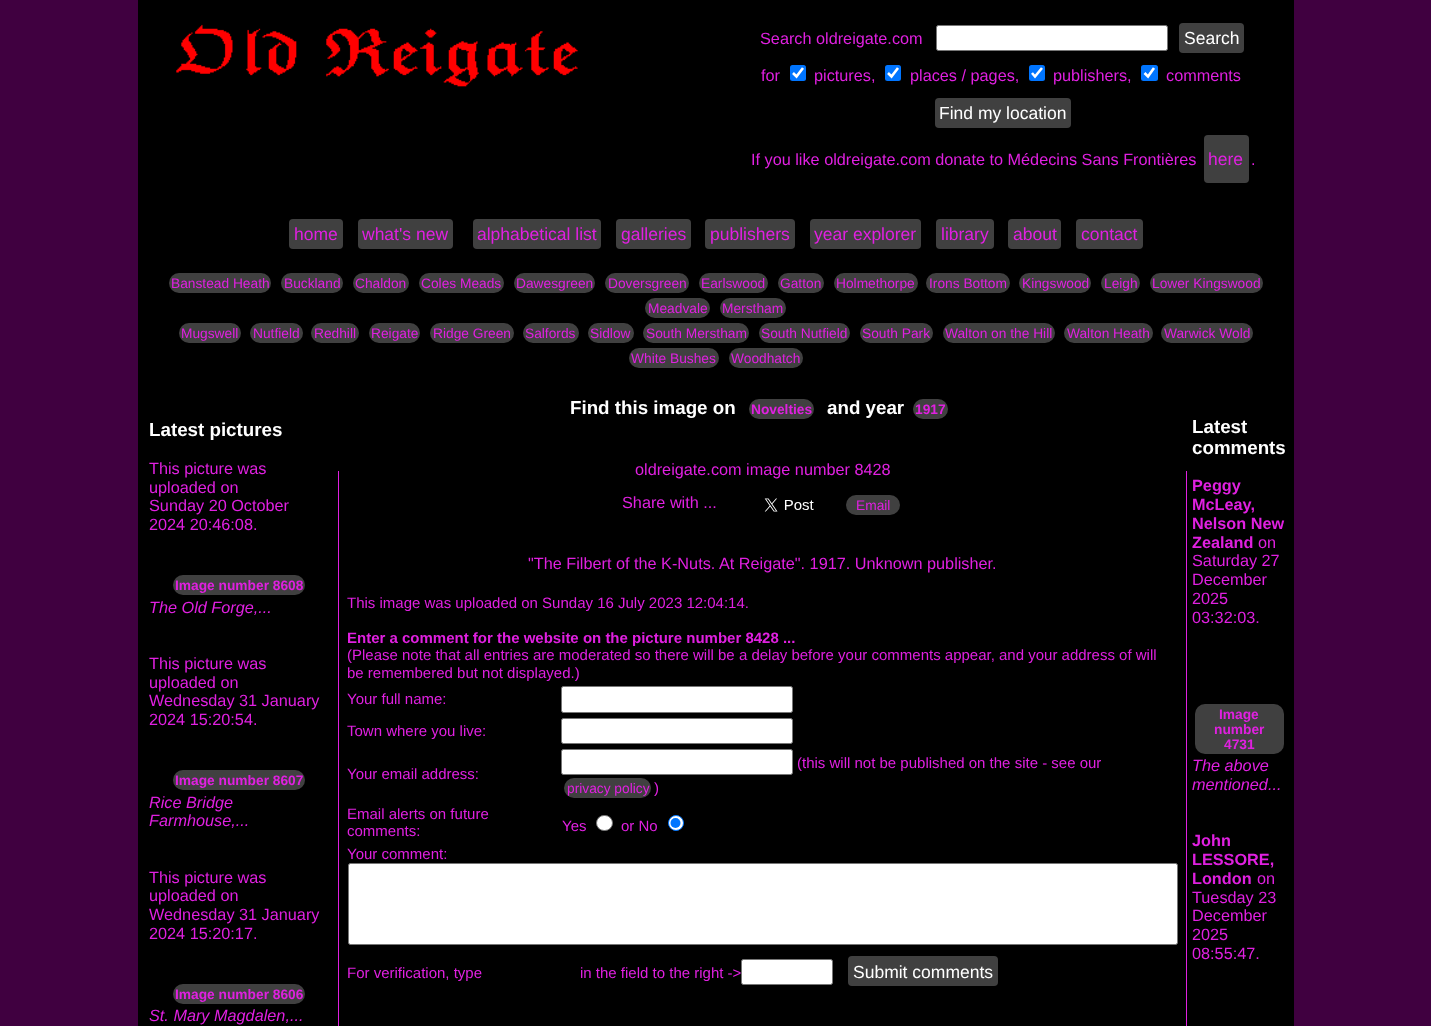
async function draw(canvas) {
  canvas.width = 1431;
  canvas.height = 1026;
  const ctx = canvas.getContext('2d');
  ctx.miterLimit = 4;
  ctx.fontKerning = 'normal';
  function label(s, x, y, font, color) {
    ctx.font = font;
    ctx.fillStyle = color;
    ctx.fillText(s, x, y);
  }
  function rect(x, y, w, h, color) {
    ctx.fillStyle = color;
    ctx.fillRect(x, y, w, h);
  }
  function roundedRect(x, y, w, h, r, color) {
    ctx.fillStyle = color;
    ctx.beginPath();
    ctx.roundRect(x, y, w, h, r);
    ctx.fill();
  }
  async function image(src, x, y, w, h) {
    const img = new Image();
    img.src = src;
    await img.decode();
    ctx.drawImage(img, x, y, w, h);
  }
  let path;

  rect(0, 0, 1431, 1026, '#400040');
  rect(138, 0, 1156, 1026, '#000');
  await image('assets/img1.png', 176, 24, 402, 63);
  label('Search oldreigate.com', 760, 44, '16.25px Liberation Sans', '#e020e0');
  ctx.fillStyle = '#fff';
  ctx.beginPath();
  ctx.roundRect(936.5, 25.5, 231, 25, 2);
  ctx.fill();
  ctx.strokeStyle = '#767676';
  ctx.stroke();
  roundedRect(1179, 23, 65, 30, 4, '#404040');
  label('Search', 1184, 44, '17.5px Liberation Sans', '#fff');
  label('for', 761, 81, '16.25px Liberation Sans', '#e020e0');
  roundedRect(790, 65, 16, 16, 2.5, '#0075ff');
  path = new Path2D('M793 73L796.5 76.5L803 68');
  ctx.strokeStyle = '#fff';
  ctx.lineWidth = 2.6;
  ctx.stroke(path);
  label('pictures,', 814, 81, '16.25px Liberation Sans', '#e020e0');
  roundedRect(885, 65, 16, 16, 2.5, '#0075ff');
  path = new Path2D('M888 73L891.5 76.5L898 68');
  ctx.stroke(path);
  label('places / pages,', 910, 81, '16.25px Liberation Sans', '#e020e0');
  roundedRect(1029, 65, 16, 16, 2.5, '#0075ff');
  path = new Path2D('M1032 73L1035 76.5L1042 68');
  ctx.stroke(path);
  label('publishers,', 1053, 81, '16.25px Liberation Sans', '#e020e0');
  roundedRect(1141, 65, 17, 16, 2.5, '#0075ff');
  path = new Path2D('M1144.5 73L1148 76.5L1154 68');
  ctx.stroke(path);
  label('comments', 1166, 81, '16.25px Liberation Sans', '#e020e0');
  roundedRect(935, 98, 136, 30, 4, '#404040');
  label('Find my location', 939, 119, '17.5px Liberation Sans', '#fff');
  label('If you like oldreigate.com donate to Médecins Sans Frontières', 751, 165, '16.25px Liberation Sans', '#e020e0');
  roundedRect(1204, 135, 45, 48, 4, '#404040');
  label('here', 1208, 165, '17.5px Liberation Sans', '#e020e0');
  label('.', 1251, 165, '16.25px Liberation Sans', '#e020e0');
  roundedRect(289, 219, 54, 30, 4, '#404040');
  label('home', 294, 240, '17.5px Liberation Sans', '#e020e0');
  roundedRect(358, 219, 95, 30, 4, '#404040');
  label('what\'s new', 362, 240, '17.5px Liberation Sans', '#e020e0');
  roundedRect(473, 219, 128, 30, 4, '#404040');
  label('alphabetical list', 477, 240, '17.5px Liberation Sans', '#e020e0');
  roundedRect(616, 219, 75, 30, 4, '#404040');
  label('galleries', 621, 240, '17.5px Liberation Sans', '#e020e0');
  roundedRect(705, 219, 90, 30, 4, '#404040');
  label('publishers', 710, 240, '17.5px Liberation Sans', '#e020e0');
  roundedRect(810, 219, 111, 30, 4, '#404040');
  label('year explorer', 814, 240, '17.5px Liberation Sans', '#e020e0');
  roundedRect(936, 219, 58, 30, 4, '#404040');
  label('library', 941, 240, '17.5px Liberation Sans', '#e020e0');
  roundedRect(1008, 219, 53, 30, 4, '#404040');
  label('about', 1013, 240, '17.5px Liberation Sans', '#e020e0');
  roundedRect(1076, 219, 67, 30, 4, '#404040');
  label('contact', 1081, 240, '17.5px Liberation Sans', '#e020e0');
  roundedRect(169, 273, 102, 20, 10, '#404040');
  label('Banstead Heath', 171, 288, '13.75px Liberation Sans', '#e020e0');
  roundedRect(281, 273, 62, 20, 10, '#404040');
  label('Buckland', 284, 288, '13.75px Liberation Sans', '#e020e0');
  roundedRect(353, 273, 56, 20, 10, '#404040');
  label('Chaldon', 355, 288, '13.75px Liberation Sans', '#e020e0');
  roundedRect(419, 273, 85, 20, 10, '#404040');
  label('Coles Meads', 421, 288, '13.75px Liberation Sans', '#e020e0');
  roundedRect(514, 273, 81, 20, 10, '#404040');
  label('Dawesgreen', 516, 288, '13.75px Liberation Sans', '#e020e0');
  roundedRect(605, 273, 84, 20, 10, '#404040');
  label('Doversgreen', 608, 288, '13.75px Liberation Sans', '#e020e0');
  roundedRect(699, 273, 69, 20, 10, '#404040');
  label('Earlswood', 701, 288, '13.75px Liberation Sans', '#e020e0');
  roundedRect(778, 273, 46, 20, 10, '#404040');
  label('Gatton', 780, 288, '13.75px Liberation Sans', '#e020e0');
  roundedRect(834, 273, 84, 20, 10, '#404040');
  label('Holmethorpe', 836, 288, '13.75px Liberation Sans', '#e020e0');
  roundedRect(926, 273, 84, 20, 10, '#404040');
  label('Irons Bottom', 929, 288, '13.75px Liberation Sans', '#e020e0');
  roundedRect(1019, 273, 72, 20, 10, '#404040');
  label('Kingswood', 1022, 288, '13.75px Liberation Sans', '#e020e0');
  roundedRect(1101, 273, 39, 20, 10, '#404040');
  label('Leigh', 1104, 288, '13.75px Liberation Sans', '#e020e0');
  roundedRect(1150, 273, 113, 20, 10, '#404040');
  label('Lower Kingswood', 1152, 288, '13.75px Liberation Sans', '#e020e0');
  roundedRect(645, 298, 65, 20, 10, '#404040');
  label('Meadvale', 648, 313, '13.75px Liberation Sans', '#e020e0');
  roundedRect(720, 298, 66, 20, 10, '#404040');
  label('Merstham', 722, 313, '13.75px Liberation Sans', '#e020e0');
  roundedRect(179, 323, 62, 20, 10, '#404040');
  label('Mugswell', 181, 338, '13.75px Liberation Sans', '#e020e0');
  roundedRect(250, 323, 53, 20, 10, '#404040');
  label('Nutfield', 253, 338, '13.75px Liberation Sans', '#e020e0');
  roundedRect(311, 323, 48, 20, 10, '#404040');
  label('Redhill', 314, 338, '13.75px Liberation Sans', '#e020e0');
  roundedRect(369, 323, 51, 20, 10, '#404040');
  label('Reigate', 371, 338, '13.75px Liberation Sans', '#e020e0');
  roundedRect(430, 323, 84, 20, 10, '#404040');
  label('Ridge Green', 433, 338, '13.75px Liberation Sans', '#e020e0');
  roundedRect(523, 323, 56, 20, 10, '#404040');
  label('Salfords', 525, 338, '13.75px Liberation Sans', '#e020e0');
  roundedRect(588, 323, 46, 20, 10, '#404040');
  label('Sidlow', 590, 338, '13.75px Liberation Sans', '#e020e0');
  roundedRect(643, 323, 106, 20, 10, '#404040');
  label('South Merstham', 646, 338, '13.75px Liberation Sans', '#e020e0');
  roundedRect(759, 323, 91, 20, 10, '#404040');
  label('South Nutfield', 761, 338, '13.75px Liberation Sans', '#e020e0');
  roundedRect(860, 323, 73, 20, 10, '#404040');
  label('South Park', 862, 338, '13.75px Liberation Sans', '#e020e0');
  roundedRect(943, 323, 112, 20, 10, '#404040');
  label('Walton on the Hill', 945, 338, '13.75px Liberation Sans', '#e020e0');
  roundedRect(1064, 323, 89, 20, 10, '#404040');
  label('Walton Heath', 1067, 338, '13.75px Liberation Sans', '#e020e0');
  roundedRect(1161, 323, 92, 20, 10, '#404040');
  label('Warwick Wold', 1164, 338, '13.75px Liberation Sans', '#e020e0');
  roundedRect(629, 348, 90, 20, 10, '#404040');
  label('White Bushes', 631, 363, '13.75px Liberation Sans', '#e020e0');
  roundedRect(729, 348, 74, 20, 10, '#404040');
  label('Woodhatch', 731, 363, '13.75px Liberation Sans', '#e020e0');
  label('Latest pictures', 149, 436, 'bold 18.75px Liberation Sans', '#fff');
  label('This picture was', 149, 474, '16.25px Liberation Sans', '#e020e0');
  label('uploaded on', 149, 493, '16.25px Liberation Sans', '#e020e0');
  label('Sunday 20 October', 149, 511, '16.25px Liberation Sans', '#e020e0');
  label('2024 20:46:08.', 149, 530, '16.25px Liberation Sans', '#e020e0');
  roundedRect(173, 575, 132, 20, 10, '#404040');
  label('Image number 8608', 175, 590, 'bold 13.75px Liberation Sans', '#e020e0');
  label('The Old Forge,...', 149, 613, 'italic 16.25px Liberation Sans', '#e020e0');
  label('This picture was', 149, 669, '16.25px Liberation Sans', '#e020e0');
  label('uploaded on', 149, 688, '16.25px Liberation Sans', '#e020e0');
  label('Wednesday 31 January', 149, 706, '16.25px Liberation Sans', '#e020e0');
  label('2024 15:20:54.', 149, 725, '16.25px Liberation Sans', '#e020e0');
  roundedRect(173, 770, 132, 20, 10, '#404040');
  label('Image number 8607', 175, 785, 'bold 13.75px Liberation Sans', '#e020e0');
  label('Rice Bridge', 149, 808, 'italic 16.25px Liberation Sans', '#e020e0');
  label('Farmhouse,...', 149, 826, 'italic 16.25px Liberation Sans', '#e020e0');
  label('This picture was', 149, 883, '16.25px Liberation Sans', '#e020e0');
  label('uploaded on', 149, 901, '16.25px Liberation Sans', '#e020e0');
  label('Wednesday 31 January', 149, 920, '16.25px Liberation Sans', '#e020e0');
  label('2024 15:20:17.', 149, 939, '16.25px Liberation Sans', '#e020e0');
  roundedRect(173, 984, 132, 20, 10, '#404040');
  label('Image number 8606', 175, 999, 'bold 13.75px Liberation Sans', '#e020e0');
  label('St. Mary Magdalen,...', 149, 1021, 'italic 16.25px Liberation Sans', '#e020e0');
  rect(338, 471, 1, 555, '#e020e0');
  label('Find this image on', 570, 414, 'bold 18.75px Liberation Sans', '#fff');
  roundedRect(749, 399, 65, 20, 10, '#404040');
  label('Novelties', 751, 414, 'bold 13.75px Liberation Sans', '#e020e0');
  label('and year', 827, 414, 'bold 18.75px Liberation Sans', '#fff');
  roundedRect(913, 399, 35, 20, 10, '#404040');
  label('1917', 915, 414, 'bold 13.75px Liberation Sans', '#e020e0');
  label('oldreigate.com image number 8428', 635, 475, '16.25px Liberation Sans', '#e020e0');
  label('Share with ...', 622, 508, '16.25px Liberation Sans', '#e020e0');
  await image('assets/img2.png', 764, 498, 50, 14);
  roundedRect(846, 495, 54, 20, 10, '#404040');
  label('Email', 856, 510, '13.75px Liberation Sans', '#e020e0');
  label('"The Filbert of the K-Nuts. At Reigate". 1917. Unknown publisher.', 528, 569, '16.25px Liberation Sans', '#e020e0');
  label('This image was uploaded on Sunday 16 July 2023 12:04:14.', 347, 608, '15px Liberation Sans', '#e020e0');
  label('Enter a comment for the website on the picture number 8428 ...', 347, 643, 'bold 15px Liberation Sans', '#e020e0');
  label('(Please note that all entries are moderated so there will be a delay before your comments appear, and your address of will', 347, 660, '15px Liberation Sans', '#e020e0');
  label('be remembered but not displayed.)', 347, 678, '15px Liberation Sans', '#e020e0');
  label('Your full name:', 347, 704, '15px Liberation Sans', '#e020e0');
  ctx.fillStyle = '#fff';
  ctx.beginPath();
  ctx.roundRect(561.5, 686.5, 231, 26, 2);
  ctx.fill();
  ctx.strokeStyle = '#767676';
  ctx.lineWidth = 1;
  ctx.stroke();
  label('Town where you live:', 347, 736, '15px Liberation Sans', '#e020e0');
  ctx.fillStyle = '#fff';
  ctx.beginPath();
  ctx.roundRect(561.5, 718.5, 231, 25, 2);
  ctx.fill();
  ctx.stroke();
  label('Your email address:', 347, 779, '15px Liberation Sans', '#e020e0');
  ctx.fillStyle = '#fff';
  ctx.beginPath();
  ctx.roundRect(561.5, 749.5, 231, 25, 2);
  ctx.fill();
  ctx.stroke();
  label('(this will not be published on the site - see our', 797, 768, '15px Liberation Sans', '#e020e0');
  roundedRect(564, 778, 87, 20, 10, '#404040');
  label('privacy policy', 567, 793, '13.75px Liberation Sans', '#e020e0');
  label(')', 654, 793, '15px Liberation Sans', '#e020e0');
  label('Email alerts on future', 347, 819, '15px Liberation Sans', '#e020e0');
  label('comments:', 347, 836, '15px Liberation Sans', '#e020e0');
  label('Yes', 562, 831, '15px Liberation Sans', '#e020e0');
  ctx.fillStyle = '#fff';
  ctx.beginPath();
  ctx.roundRect(596.5, 815.5, 16, 15, 7.5);
  ctx.fill();
  ctx.stroke();
  label('or No', 621, 831, '15px Liberation Sans', '#e020e0');
  ctx.fillStyle = '#fff';
  ctx.beginPath();
  ctx.arc(676, 823, 7.5, 0, 2 * Math.PI);
  ctx.fill();
  ctx.strokeStyle = '#0075ff';
  ctx.stroke();
  ctx.fillStyle = '#0075ff';
  ctx.beginPath();
  ctx.arc(675.5, 823, 5, 0, 2 * Math.PI);
  ctx.fill();
  label('Your comment:', 347, 859, '15px Liberation Sans', '#e020e0');
  ctx.fillStyle = '#fff';
  ctx.beginPath();
  ctx.roundRect(348.5, 863.5, 829, 81, 2);
  ctx.fill();
  ctx.strokeStyle = '#767676';
  ctx.stroke();
  label('For verification, type', 347, 978, '15px Liberation Sans', '#e020e0');
  label('in the field to the right ->', 580, 978, '15px Liberation Sans', '#e020e0');
  ctx.fillStyle = '#fff';
  ctx.beginPath();
  ctx.roundRect(741.5, 959.5, 91, 25, 2);
  ctx.fill();
  ctx.stroke();
  roundedRect(848, 956, 150, 30, 4, '#404040');
  label('Submit comments', 853, 978, '17.5px Liberation Sans', '#fff');
  rect(1186, 471, 1, 555, '#e020e0');
  label('Latest', 1192, 433, 'bold 18.75px Liberation Sans', '#fff');
  label('comments', 1192, 454, 'bold 18.75px Liberation Sans', '#fff');
  label('Peggy', 1192, 491, 'bold 16.25px Liberation Sans', '#e020e0');
  label('McLeay,', 1192, 510, 'bold 16.25px Liberation Sans', '#e020e0');
  label('Nelson New', 1192, 529, 'bold 16.25px Liberation Sans', '#e020e0');
  label('Zealand', 1192, 548, 'bold 16.25px Liberation Sans', '#e020e0');
  label('on', 1258, 548, '16.25px Liberation Sans', '#e020e0');
  label('Saturday 27', 1192, 566, '16.25px Liberation Sans', '#e020e0');
  label('December', 1192, 585, '16.25px Liberation Sans', '#e020e0');
  label('2025', 1192, 604, '16.25px Liberation Sans', '#e020e0');
  label('03:32:03.', 1192, 623, '16.25px Liberation Sans', '#e020e0');
  roundedRect(1195, 704, 89, 50, 10, '#404040');
  label('Image', 1219, 719, 'bold 13.75px Liberation Sans', '#e020e0');
  label('number', 1214, 734, 'bold 13.75px Liberation Sans', '#e020e0');
  label('4731', 1224, 749, 'bold 13.75px Liberation Sans', '#e020e0');
  label('The above', 1192, 771, 'italic 16.25px Liberation Sans', '#e020e0');
  label('mentioned...', 1192, 790, 'italic 16.25px Liberation Sans', '#e020e0');
  label('John', 1192, 846, 'bold 16.25px Liberation Sans', '#e020e0');
  label('LESSORE,', 1192, 865, 'bold 16.25px Liberation Sans', '#e020e0');
  label('London', 1192, 884, 'bold 16.25px Liberation Sans', '#e020e0');
  label('on', 1257, 884, '16.25px Liberation Sans', '#e020e0');
  label('Tuesday 23', 1192, 903, '16.25px Liberation Sans', '#e020e0');
  label('December', 1192, 921, '16.25px Liberation Sans', '#e020e0');
  label('2025', 1192, 940, '16.25px Liberation Sans', '#e020e0');
  label('08:55:47.', 1192, 959, '16.25px Liberation Sans', '#e020e0');
}

draw(document.querySelector('canvas'));
